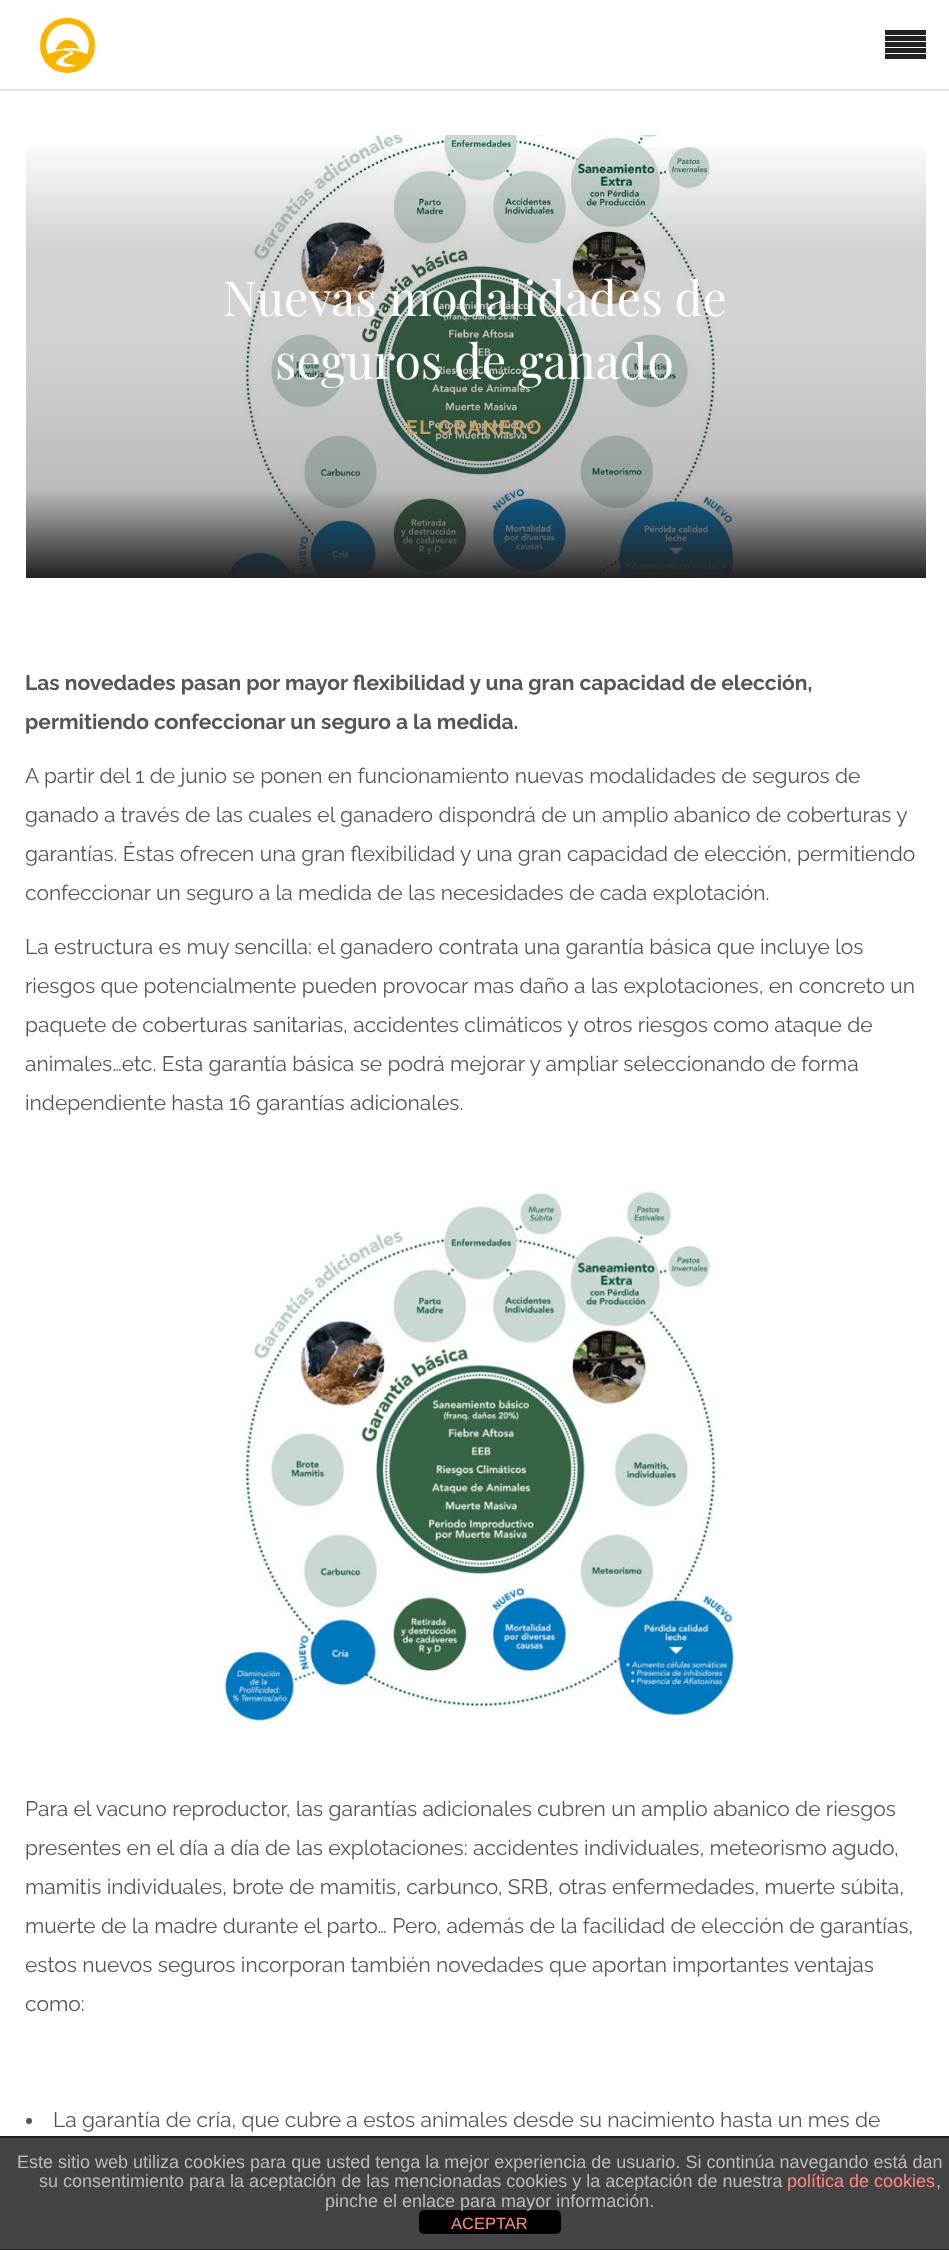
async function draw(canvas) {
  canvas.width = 949;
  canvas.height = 2250;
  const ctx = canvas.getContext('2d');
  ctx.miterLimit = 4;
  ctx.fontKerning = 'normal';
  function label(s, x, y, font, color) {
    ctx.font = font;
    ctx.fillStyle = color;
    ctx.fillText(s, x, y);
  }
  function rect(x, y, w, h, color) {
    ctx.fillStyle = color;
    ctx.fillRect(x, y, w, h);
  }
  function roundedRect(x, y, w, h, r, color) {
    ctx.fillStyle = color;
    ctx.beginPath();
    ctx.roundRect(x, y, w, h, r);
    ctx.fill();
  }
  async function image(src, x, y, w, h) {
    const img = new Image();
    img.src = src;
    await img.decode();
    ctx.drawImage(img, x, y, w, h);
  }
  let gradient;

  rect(0, 0, 949, 2250, '#fff');
  rect(0, 89, 949, 2, '#e4e4e4');
  await image('assets/img1.png', 39, 18, 57, 55);
  rect(885, 30, 41, 5, '#222');
  rect(885, 36, 41, 5, '#222');
  rect(885, 42, 41, 5, '#222');
  rect(885, 48, 41, 5, '#222');
  rect(885, 54, 41, 5, '#222');
  await image('assets/img2.png', 221, 135, 513, 442);
  gradient = ctx.createLinearGradient(476, 135, 476, 578);
  gradient.addColorStop(0, '#22222200');
  gradient.addColorStop(0.25, '#22222233');
  gradient.addColorStop(0.45, '#22222233');
  gradient.addColorStop(0.8, '#2222224d');
  gradient.addColorStop(1, '#222');
  ctx.fillStyle = gradient;
  ctx.fillRect(26, 147, 900, 431);
  label('Nuevas modalidades de', 223, 316, '48px Playfair Display', '#fff');
  label('seguros de ganado', 275, 379, '48px Playfair Display', '#fff');
  ctx.letterSpacing = '1.5px';
  label('EL GRANERO', 406, 434, 'bold 19.5px Raleway', '#c99e66');
  ctx.letterSpacing = '0px';
  label('Las novedades pasan por mayor flexibilidad y una gran capacidad de elección,', 25, 690, 'bold 21px Raleway', '#555');
  label('permitiendo confeccionar un seguro a la medida.', 25, 729, 'bold 21px Raleway', '#555');
  label('A partir del 1 de junio se ponen en funcionamiento nuevas modalidades de seguros de', 25, 783, '21px Raleway', '#555');
  label('ganado a través de las cuales el ganadero dispondrá de un amplio abanico de coberturas y', 25, 822, '21px Raleway', '#555');
  label('garantías. Éstas ofrecen una gran flexibilidad y una gran capacidad de elección, permitiendo', 25, 861, '21px Raleway', '#555');
  label('confeccionar un seguro a la medida de las necesidades de cada explotación.', 25, 900, '21px Raleway', '#555');
  label('La estructura es muy sencilla: el ganadero contrata una garantía básica que incluye los', 25, 954, '21px Raleway', '#555');
  label('riesgos que potencialmente pueden provocar mas daño a las explotaciones, en concreto un', 25, 993, '21px Raleway', '#555');
  label('paquete de coberturas sanitarias, accidentes climáticos y otros riesgos como ataque de', 25, 1032, '21px Raleway', '#555');
  label('animales…etc. Esta garantía básica se podrá mejorar y ampliar seleccionando de forma', 25, 1071, '21px Raleway', '#555');
  label('independiente hasta 16 garantías adicionales.', 25, 1110, '21px Raleway', '#555');
  await image('assets/img3.png', 222, 1191, 514, 534);
  label('Para el vacuno reproductor, las garantías adicionales cubren un amplio abanico de riesgos', 25, 1816, '21px Raleway', '#555');
  label('presentes en el día a día de las explotaciones: accidentes individuales, meteorismo agudo,', 25, 1855, '21px Raleway', '#555');
  label('mamitis individuales, brote de mamitis, carbunco, SRB, otras enfermedades, muerte súbita,', 25, 1894, '21px Raleway', '#555');
  label('muerte de la madre durante el parto… Pero, además de la facilidad de elección de garantías,', 25, 1933, '21px Raleway', '#555');
  label('estos nuevos seguros incorporan también novedades que aportan importantes ventajas', 25, 1972, '21px Raleway', '#555');
  label('como:', 25, 2011, '21px Raleway', '#555');
  ctx.beginPath();
  ctx.arc(29, 2121, 3, 0, 2 * Math.PI);
  ctx.fill();
  label('La garantía de cría, que cubre a estos animales desde su nacimiento hasta un mes de', 53, 2127, '21px Raleway', '#555');
  rect(0, 2138, 949, 111, '#444');
  rect(0, 2136, 949, 2, '#222');
  rect(0, 2249, 949, 1, '#222');
  label('Este sitio web utiliza cookies para que usted tenga la mejor experiencia de usuario. Si continúa navegando está dan', 17, 2168, '18px Liberation Sans', '#bbb');
  label('su consentimiento para la aceptación de las mencionadas cookies y la aceptación de nuestra', 39, 2187, '18px Liberation Sans', '#bbb');
  label('política de cookies', 787, 2187, '18px Liberation Sans', '#f88');
  label(',', 936, 2187, '18px Liberation Sans', '#bbb');
  roundedRect(419, 2210, 142, 24, 5, '#000');
  label('pinche el enlace para mayor información.', 325, 2207, '18px Liberation Sans', '#bbb');
  label('ACEPTAR', 451, 2229, '16.5px Liberation Sans', '#f88');
}

draw(document.querySelector('canvas'));
